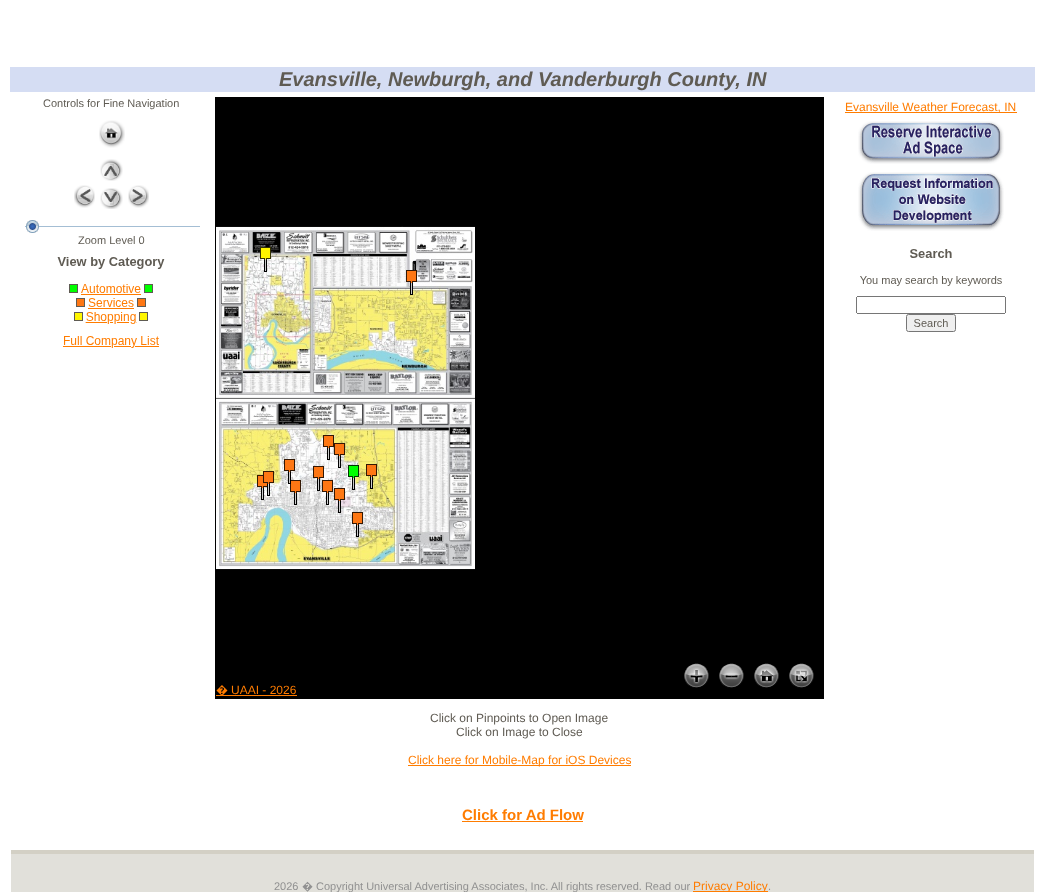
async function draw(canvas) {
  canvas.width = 1045;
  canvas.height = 892;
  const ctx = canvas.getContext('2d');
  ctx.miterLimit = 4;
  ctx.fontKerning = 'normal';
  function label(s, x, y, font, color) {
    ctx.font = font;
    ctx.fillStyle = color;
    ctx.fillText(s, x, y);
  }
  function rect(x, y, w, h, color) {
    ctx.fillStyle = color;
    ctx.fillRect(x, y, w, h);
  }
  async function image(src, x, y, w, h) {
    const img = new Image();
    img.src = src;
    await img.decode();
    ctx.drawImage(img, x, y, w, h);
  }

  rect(0, 0, 1045, 892, '#fff');
  rect(10, 67, 1025, 25, '#d5ddf3');
  label('Evansville, Newburgh, and Vanderburgh County, IN', 279, 86, 'italic bold 20px Liberation Sans', '#5f5b53');
  label('Controls for Fine Navigation', 43, 107, '11px Liberation Sans', '#5f5b53');
  await image('assets/img1.png', 99, 120, 26, 28);
  await image('assets/img2.png', 100, 159, 23, 22);
  await image('assets/img3.png', 74, 185, 21, 23);
  await image('assets/img4.png', 100, 188, 23, 21);
  await image('assets/img5.png', 128, 185, 21, 23);
  rect(25, 226, 175, 1, '#a4bed4');
  await image('assets/img6.png', 26, 220, 13, 13);
  label('Zoom Level 0', 78, 244, '11px Liberation Sans', '#5f5b53');
  await image('assets/img7.png', 57, 257, 108, 91);
  rect(845, 112, 172, 1, '#ff7c00');
  label('Evansville Weather Forecast, IN', 845, 111, '12px Liberation Sans', '#ff7c00');
  await image('assets/img8.png', 858, 121, 146, 43);
  await image('assets/img9.png', 858, 172, 146, 59);
  await image('assets/img10.png', 856, 249, 150, 83);
  rect(215, 97, 609, 602, '#000');
  await image('assets/img14.png', 401, 413, 74, 157);
  await image('assets/img12.png', 401, 226, 74, 188);
  await image('assets/img13.png', 216, 412, 187, 158);
  await image('assets/img11.png', 216, 226, 187, 188);
  await image('assets/img15.png', 260, 247, 11, 25);
  await image('assets/img16.png', 406, 270, 11, 25);
  await image('assets/img17.png', 323, 435, 11, 25);
  await image('assets/img18.png', 334, 443, 11, 25);
  await image('assets/img19.png', 257, 475, 10, 25);
  await image('assets/img20.png', 263, 471, 11, 25);
  await image('assets/img22.png', 290, 480, 11, 25);
  await image('assets/img21.png', 284, 459, 11, 25);
  await image('assets/img23.png', 313, 466, 11, 25);
  await image('assets/img24.png', 322, 480, 11, 25);
  await image('assets/img25.png', 334, 488, 11, 25);
  await image('assets/img26.png', 348, 465, 11, 25);
  await image('assets/img27.png', 366, 464, 11, 25);
  await image('assets/img28.png', 352, 512, 11, 25);
  await image('assets/img29.png', 684, 663, 25, 25);
  await image('assets/img30.png', 684, 663, 25, 24);
  await image('assets/img31.png', 719, 663, 25, 25);
  await image('assets/img32.png', 719, 663, 25, 24);
  await image('assets/img33.png', 754, 663, 25, 25);
  await image('assets/img34.png', 754, 663, 25, 24);
  await image('assets/img35.png', 789, 663, 25, 25);
  await image('assets/img36.png', 789, 663, 25, 24);
  rect(216, 695, 81, 1, '#ff7c00');
  label('�', 216, 694, '12px Noto Sans', '#ff7c00');
  label('UAAI - 2026', 231, 694, '12px Liberation Sans', '#ff7c00');
  label('Click on Pinpoints to Open Image', 430, 722, '12px Liberation Sans', '#5f5b53');
  label('Click on Image to Close', 456, 736, '12px Liberation Sans', '#5f5b53');
  rect(408, 765, 223, 1, '#ff7c00');
  label('Click here for Mobile-Map for iOS Devices', 408, 764, '12px Liberation Sans', '#ff7c00');
  label('Click for Ad Flow', 462, 820, 'bold 15px Liberation Sans', '#ff7c00');
  rect(462, 821, 121, 1, '#ff7c00');
  await image('assets/img37.png', 11, 850, 1023, 42);
  label('2026', 274, 890, '11px Liberation Sans', '#919191');
  label('�', 302, 890, '11px Noto Sans', '#919191');
  label('Copyright Universal Advertising Associates, Inc. All rights reserved. Read our', 316, 890, '11px Liberation Sans', '#919191');
  rect(693, 891, 75, 1, '#ff7c00');
  label('Privacy Policy', 693, 890, '12px Liberation Sans', '#ff7c00');
  label('.', 768, 890, '11px Liberation Sans', '#919191');
}

draw(document.querySelector('canvas'));
